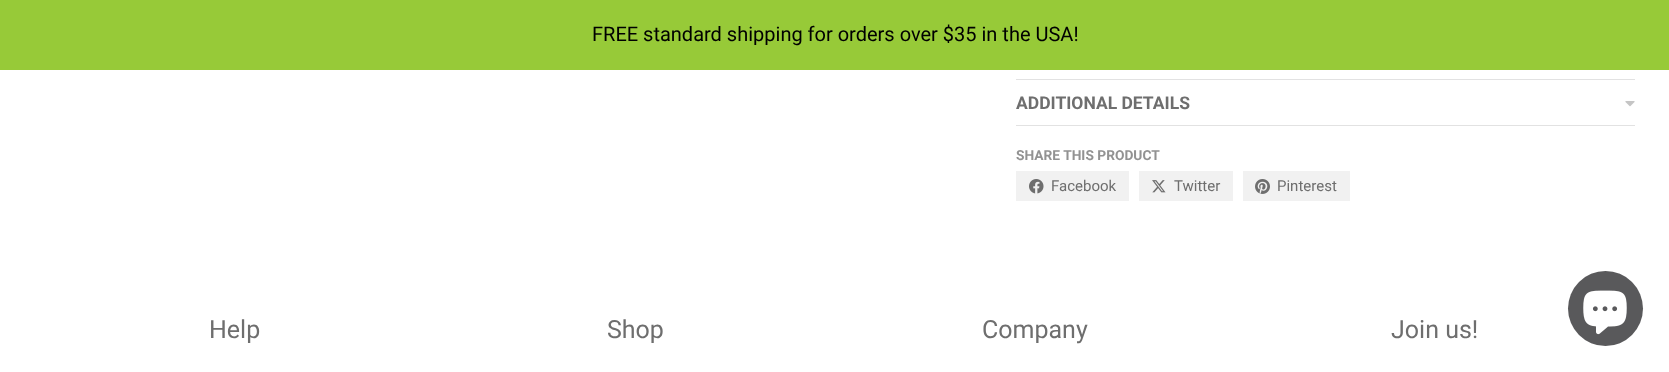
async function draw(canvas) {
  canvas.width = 1669;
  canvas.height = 372;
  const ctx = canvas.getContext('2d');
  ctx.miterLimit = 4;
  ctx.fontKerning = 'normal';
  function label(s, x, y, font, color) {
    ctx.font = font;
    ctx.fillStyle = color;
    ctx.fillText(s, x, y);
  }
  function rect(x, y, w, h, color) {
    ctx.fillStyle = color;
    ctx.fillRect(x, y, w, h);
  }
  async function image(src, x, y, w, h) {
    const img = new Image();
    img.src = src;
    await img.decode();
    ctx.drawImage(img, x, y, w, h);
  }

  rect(0, 0, 1669, 372, '#fff');
  rect(0, 0, 1669, 70, '#97ca38');
  label('FREE standard shipping for orders over $35 in the USA!', 592, 41, '20px Roboto', '#000');
  rect(1016, 79, 619, 1, '#e2e2e2');
  rect(1016, 125, 619, 1, '#e2e2e2');
  label('ADDITIONAL DETAILS', 1016, 109, 'bold 17.5px Roboto', '#6e6e6e');
  await image('assets/img1.png', 1625, 101, 10, 6);
  label('SHARE THIS PRODUCT', 1016, 160, 'bold 13.75px Roboto', '#929292');
  rect(1016, 171, 113, 30, '#f1f1f1');
  await image('assets/img2.png', 1029, 179, 15, 15);
  label('Facebook', 1051, 191, '15px Roboto', '#6e6e6e');
  rect(1139, 171, 94, 30, '#f1f1f1');
  await image('assets/img3.png', 1152, 180, 14, 13);
  label('Twitter', 1174, 191, '15px Roboto', '#6e6e6e');
  rect(1243, 171, 107, 30, '#f1f1f1');
  await image('assets/img4.png', 1255, 179, 15, 15);
  label('Pinterest', 1277, 191, '15px Roboto', '#6e6e6e');
  label('Help', 209, 338, '25px Roboto', '#6e6e6e');
  label('Shop', 607, 338, '25px Roboto', '#6e6e6e');
  label('Company', 982, 338, '25px Roboto', '#6e6e6e');
  label('Join us!', 1391, 338, '25px Roboto', '#6e6e6e');
  ctx.fillStyle = '#59595b';
  ctx.beginPath();
  ctx.arc(1605.5, 308.5, 37.5, 0, 2 * Math.PI);
  ctx.fill();
  await image('assets/img5.png', 1583, 290, 44, 45);
}

draw(document.querySelector('canvas'));
